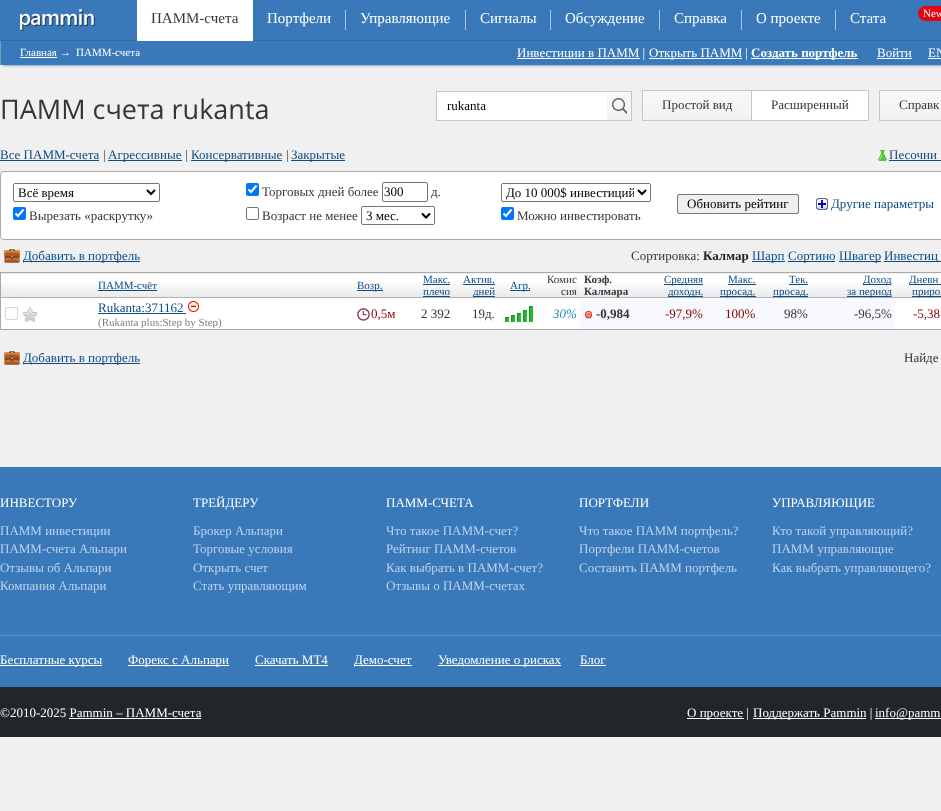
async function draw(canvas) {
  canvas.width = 941;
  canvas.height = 811;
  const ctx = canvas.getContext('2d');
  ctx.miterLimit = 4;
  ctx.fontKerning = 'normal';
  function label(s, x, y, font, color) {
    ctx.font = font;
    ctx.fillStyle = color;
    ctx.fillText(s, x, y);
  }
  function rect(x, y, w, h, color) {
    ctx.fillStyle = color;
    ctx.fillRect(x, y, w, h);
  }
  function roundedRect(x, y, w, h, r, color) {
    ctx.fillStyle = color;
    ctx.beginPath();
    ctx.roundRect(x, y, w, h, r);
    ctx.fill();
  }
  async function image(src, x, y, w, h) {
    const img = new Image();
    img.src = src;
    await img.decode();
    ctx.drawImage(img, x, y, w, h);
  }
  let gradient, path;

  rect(0, 0, 941, 811, '#f0f0f0');
  rect(0, 0, 941, 39, '#3979b9');
  await image('assets/img1.png', 0, 39, 941, 2);
  await image('assets/img2.png', 20, 9, 75, 22);
  rect(137, 0, 116, 41, '#fff');
  label('ПАММ-счета', 151, 23, '15px Liberation Serif', '#363636');
  rect(345, 10, 1, 20, '#a7c6e4');
  label('Портфели', 267, 23, '15px Liberation Serif', '#fff');
  rect(465, 10, 1, 20, '#a7c6e4');
  label('Управляющие', 360, 23, '15px Liberation Serif', '#fff');
  rect(550, 10, 1, 20, '#a7c6e4');
  label('Сигналы', 480, 23, '15px Liberation Serif', '#fff');
  rect(659, 10, 1, 20, '#a7c6e4');
  label('Обсуждение', 565, 23, '15px Liberation Serif', '#fff');
  rect(741, 10, 1, 20, '#a7c6e4');
  label('Справка', 674, 23, '15px Liberation Serif', '#fff');
  rect(835, 10, 1, 20, '#a7c6e4');
  label('О проекте', 756, 23, '15px Liberation Serif', '#fff');
  label('Стата', 850, 23, '15px Liberation Serif', '#fff');
  roundedRect(918, 6, 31, 15, 7.5, '#e20613');
  label('New', 923, 17, '11px Liberation Serif', '#fff');
  ctx.fillStyle = '#2c6298';
  ctx.filter = 'blur(1.5px)';
  ctx.beginPath();
  ctx.rect(3, 47, 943, 18);
  ctx.fill();
  ctx.filter = 'none';
  rect(1, 41, 940, 24, '#3979b9');
  rect(0, 41, 1, 24, '#72a3b5');
  label('Главная →', 20, 56, '11px Liberation Serif', '#fff');
  rect(20, 57, 37, 1, '#fff');
  label('ПАММ-счета', 76, 56, '11px Liberation Serif', '#fff');
  rect(517, 58, 123, 1, '#fff');
  label('Инвестиции в ПАММ |', 517, 57, '13px Liberation Serif', '#fff');
  rect(649, 58, 93, 1, '#fff');
  label('Открыть ПАММ', 649, 57, '13px Liberation Serif', '#fff');
  label('|', 745, 57, '13px Liberation Serif', '#fff');
  rect(751, 58, 107, 1, '#fff');
  label('Создать портфель', 751, 57, 'bold 13px Liberation Serif', '#fff');
  label('Войти', 877, 57, '13px Liberation Serif', '#fff');
  rect(877, 58, 35, 1, '#fff');
  label('EN', 928, 57, '13px Liberation Serif', '#fff');
  rect(928, 58, 13, 1, '#fff');
  label('ПАММ счета rukanta', 0, 119, '27px Open Sans', '#363636');
  gradient = ctx.createLinearGradient(534, 92, 534, 120);
  gradient.addColorStop(0, '#f8f8f8');
  gradient.addColorStop(1, '#f2f2f2');
  ctx.fillStyle = gradient;
  ctx.fillRect(607, 92, 24, 26);
  ctx.strokeStyle = '#c6c6c6';
  ctx.strokeRect(436.5, 91.5, 195, 29);
  rect(437, 92, 170, 28, '#fff');
  label('rukanta', 447, 110, '13px Liberation Serif', '#000');
  await image('assets/img3.png', 612, 98, 15, 16);
  gradient = ctx.createLinearGradient(697, 91, 697, 120);
  gradient.addColorStop(0, '#f8f8f8');
  gradient.addColorStop(1, '#f2f2f2');
  ctx.fillStyle = gradient;
  ctx.fillRect(643, 91, 108, 27);
  ctx.strokeRect(642.5, 90.5, 109, 30);
  label('Простой вид', 662, 109, '13px Liberation Serif', '#363636');
  ctx.fillStyle = '#fff';
  ctx.beginPath();
  ctx.rect(751.5, 90.5, 117, 30);
  ctx.fill();
  ctx.stroke();
  label('Расширенный', 771, 109, '13px Liberation Serif', '#363636');
  gradient = ctx.createLinearGradient(922, 91, 922, 120);
  gradient.addColorStop(0, '#f8f8f8');
  gradient.addColorStop(1, '#f2f2f2');
  ctx.fillStyle = gradient;
  ctx.fillRect(880, 91, 61, 27);
  ctx.strokeRect(879.5, 90.5, 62, 30);
  label('Справк', 899, 109, '13px Liberation Serif', '#363636');
  label('Все ПАММ-счета', 0, 159, '13px Liberation Serif', '#0a4d88');
  rect(0, 160, 99, 1, '#0a4d88');
  label('|', 103, 159, '13px Liberation Serif', '#363636');
  rect(108, 160, 74, 1, '#0a4d88');
  label('Агрессивные', 108, 159, '13px Liberation Serif', '#0a4d88');
  label('|', 185, 159, '13px Liberation Serif', '#363636');
  rect(191, 160, 91, 1, '#0a4d88');
  label('Консервативные', 191, 159, '13px Liberation Serif', '#0a4d88');
  label('|', 286, 159, '13px Liberation Serif', '#363636');
  rect(291, 160, 54, 1, '#0a4d88');
  label('Закрытые', 291, 159, '13px Liberation Serif', '#0a4d88');
  await image('assets/img4.png', 878, 150, 9, 11);
  label('Песочни', 889, 159, '13px Liberation Serif', '#0a4d88');
  rect(889, 160, 52, 1, '#0a4d88');
  ctx.fillStyle = '#fff';
  ctx.beginPath();
  ctx.roundRect(0.5, 171.5, 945, 68, 3.5);
  ctx.fill();
  ctx.strokeStyle = '#a9a9a9';
  ctx.stroke();
  ctx.beginPath();
  ctx.roundRect(13.5, 183.5, 146, 18, 1.5);
  ctx.strokeStyle = '#767676';
  ctx.stroke();
  path = new Path2D('M147 190L151 194L155 190');
  ctx.strokeStyle = '#000';
  ctx.lineWidth = 2;
  ctx.stroke(path);
  label('Всё время', 18, 197, '13px Liberation Serif', '#000');
  roundedRect(246, 183, 13, 13, 2, '#0075ff');
  path = new Path2D('M248.5 189.5L251 192L256.5 185.5');
  ctx.strokeStyle = '#fff';
  ctx.lineWidth = 2.1;
  ctx.stroke(path);
  label('Торговых дней более', 262, 196, '13px Liberation Serif', '#363636');
  ctx.beginPath();
  ctx.roundRect(382.5, 182.5, 45, 19, 1.5);
  ctx.strokeStyle = '#767676';
  ctx.lineWidth = 1;
  ctx.stroke();
  label('300', 384, 196, '13px Liberation Serif', '#000');
  label('д.', 431, 196, '13px Liberation Serif', '#363636');
  ctx.beginPath();
  ctx.roundRect(501.5, 183.5, 149, 18, 1.5);
  ctx.stroke();
  path = new Path2D('M638 190L642 194L646 190');
  ctx.strokeStyle = '#000';
  ctx.lineWidth = 2;
  ctx.stroke(path);
  ctx.save();
  ctx.beginPath();
  ctx.rect(506, 184, 128, 17);
  ctx.clip();
  label('До 10 000$ инвестиций', 506, 197, '13px Liberation Serif', '#000');
  ctx.restore();
  ctx.fillStyle = '#efefef';
  ctx.beginPath();
  ctx.roundRect(677.5, 194.5, 121, 19, 1.5);
  ctx.fill();
  ctx.strokeStyle = '#767676';
  ctx.lineWidth = 1;
  ctx.stroke();
  label('Обновить рейтинг', 687, 208, '13px Liberation Serif', '#000');
  await image('assets/img5.png', 816, 198, 12, 12);
  label('Другие параметры', 831, 208, '13px Liberation Serif', '#0a4d88');
  roundedRect(13, 207, 13, 13, 2, '#0075ff');
  path = new Path2D('M15.5 213.5L18 216L23.5 209.5');
  ctx.strokeStyle = '#fff';
  ctx.lineWidth = 2.1;
  ctx.stroke(path);
  label('Вырезать «раскрутку»', 29, 220, '13px Liberation Serif', '#363636');
  ctx.beginPath();
  ctx.roundRect(246.5, 207.5, 12, 12, 1.5);
  ctx.strokeStyle = '#767676';
  ctx.lineWidth = 1;
  ctx.stroke();
  label('Возраст не менее', 262, 220, '13px Liberation Serif', '#363636');
  ctx.beginPath();
  ctx.roundRect(361.5, 206.5, 73, 18, 1.5);
  ctx.stroke();
  path = new Path2D('M422 213.5L426 217.5L430 213.5');
  ctx.strokeStyle = '#000';
  ctx.lineWidth = 2;
  ctx.stroke(path);
  label('3 мес.', 366, 220, '13px Liberation Serif', '#000');
  roundedRect(501, 207, 13, 13, 2, '#0075ff');
  path = new Path2D('M503.5 213.5L506 216L511.5 209.5');
  ctx.strokeStyle = '#fff';
  ctx.lineWidth = 2.1;
  ctx.stroke(path);
  label('Можно инвестировать', 517, 220, '13px Liberation Serif', '#363636');
  await image('assets/img6.png', 4, 249, 16, 14);
  rect(23, 261, 117, 1, '#0a4d88');
  label('Добавить в портфель', 23, 260, '13px Liberation Serif', '#0a4d88');
  label('Сортировка:', 631, 260, '13px Liberation Serif', '#363636');
  label('Калмар', 703, 260, 'bold 13px Liberation Serif', '#222');
  rect(752, 261, 33, 1, '#0a4d88');
  label('Шарп', 752, 260, '13px Liberation Serif', '#0a4d88');
  rect(788, 261, 47, 1, '#0a4d88');
  label('Сортино', 788, 260, '13px Liberation Serif', '#0a4d88');
  rect(839, 261, 42, 1, '#0a4d88');
  label('Швагер', 839, 260, '13px Liberation Serif', '#0a4d88');
  rect(884, 261, 57, 1, '#0a4d88');
  label('Инвестиц', 884, 260, '13px Liberation Serif', '#0a4d88');
  rect(1, 298, 940, 31, '#fff');
  rect(0, 272, 941, 1, '#a9a9a9');
  rect(0, 329, 941, 1, '#a9a9a9');
  rect(0, 272, 1, 58, '#a9a9a9');
  await image('assets/img7.png', 1, 274, 21, 23);
  await image('assets/img8.png', 22, 274, 16, 23);
  await image('assets/img9.png', 38, 274, 56, 23);
  await image('assets/img10.png', 94, 274, 186, 23);
  label('ПАММ-счёт', 98, 289, '11px Liberation Serif', '#0a4d88');
  rect(98, 290, 59, 1, '#0a4d88');
  await image('assets/img11.png', 280, 274, 25, 23);
  await image('assets/img12.png', 305, 274, 48, 23);
  await image('assets/img13.png', 353, 274, 54, 23);
  rect(357, 290, 26, 1, '#0a4d88');
  label('Возр.', 357, 289, '11px Liberation Serif', '#0a4d88');
  await image('assets/img14.png', 407, 274, 47, 23);
  label('Макс.', 423, 283, '11px Liberation Serif', '#0a4d88');
  rect(423, 284, 27, 1, '#0a4d88');
  label('плечо', 423, 295, '11px Liberation Serif', '#0a4d88');
  rect(423, 296, 27, 1, '#0a4d88');
  await image('assets/img15.png', 454, 274, 45, 23);
  label('Актив.', 463, 283, '11px Liberation Serif', '#0a4d88');
  rect(463, 284, 32, 1, '#0a4d88');
  rect(473, 296, 22, 1, '#0a4d88');
  rect(0, 297, 941, 1, '#b2b2b2');
  label('дней', 473, 295, '11px Liberation Serif', '#0a4d88');
  await image('assets/img16.png', 499, 274, 42, 23);
  rect(510, 290, 20, 1, '#0a4d88');
  label('Агр.', 510, 289, '11px Liberation Serif', '#0a4d88');
  await image('assets/img17.png', 541, 274, 39, 23);
  label('Комис', 547, 283, '11px Liberation Serif', '#363636');
  label('сия', 561, 295, '11px Liberation Serif', '#363636');
  await image('assets/img18.png', 580, 274, 66, 23);
  label('Коэф.', 584, 283, 'bold 11px Liberation Serif', '#363636');
  label('Калмара', 584, 295, 'bold 11px Liberation Serif', '#363636');
  await image('assets/img19.png', 646, 274, 61, 23);
  rect(664, 284, 39, 1, '#0a4d88');
  label('Средняя', 664, 283, '11px Liberation Serif', '#0a4d88');
  rect(668, 296, 35, 1, '#0a4d88');
  label('доходн.', 668, 295, '11px Liberation Serif', '#0a4d88');
  await image('assets/img20.png', 707, 274, 53, 23);
  label('Макс.', 728, 283, '11px Liberation Serif', '#0a4d88');
  rect(728, 284, 28, 1, '#0a4d88');
  rect(720, 296, 36, 1, '#0a4d88');
  label('просад.', 720, 295, '11px Liberation Serif', '#0a4d88');
  await image('assets/img21.png', 760, 274, 52, 23);
  label('Тек.', 789, 283, '11px Liberation Serif', '#0a4d88');
  rect(789, 284, 19, 1, '#0a4d88');
  rect(773, 296, 35, 1, '#0a4d88');
  label('просад.', 773, 295, '11px Liberation Serif', '#0a4d88');
  await image('assets/img22.png', 812, 274, 83, 23);
  rect(863, 284, 28, 1, '#0a4d88');
  label('Доход', 863, 283, '11px Liberation Serif', '#0a4d88');
  rect(847, 296, 44, 1, '#0a4d88');
  label('за период', 847, 295, '11px Liberation Serif', '#0a4d88');
  await image('assets/img23.png', 895, 274, 46, 23);
  rect(909, 284, 32, 1, '#0a4d88');
  label('Дневн', 909, 283, '11px Liberation Serif', '#0a4d88');
  rect(912, 296, 29, 1, '#0a4d88');
  label('приро', 912, 295, '11px Liberation Serif', '#0a4d88');
  ctx.beginPath();
  ctx.roundRect(5.5, 307.5, 12, 12, 1.5);
  ctx.strokeStyle = '#d6d6d6';
  ctx.lineWidth = 1;
  ctx.stroke();
  await image('assets/img24.png', 22, 307, 16, 15);
  label('Rukanta:371162', 98, 312, '13px Liberation Serif', '#0a4d88');
  rect(98, 313, 88, 1, '#0a4d88');
  await image('assets/img25.png', 188, 301, 11, 11);
  ctx.save();
  ctx.beginPath();
  ctx.rect(98, 300, 178, 28);
  ctx.clip();
  label('(Rukanta plus:Step by Step)', 98, 326, '11px Liberation Serif', '#808080');
  ctx.restore();
  await image('assets/img26.png', 357, 308, 13, 13);
  label('0,5м', 371, 318, '13px Liberation Serif', '#8b0000');
  label('2 392', 421, 318, '13px Liberation Serif', '#363636');
  label('19д.', 472, 318, '13px Liberation Serif', '#363636');
  await image('assets/img27.png', 505, 306, 28, 16);
  label('30%', 553, 318, 'italic 13px Liberation Serif', '#2185c4');
  rect(580, 298, 315, 31, '#f8f8ff');
  await image('assets/img28.png', 585, 311, 7, 8);
  label('-0,984', 596, 318, 'bold 13px Liberation Serif', '#363636');
  label('-97,9%', 665, 318, '13px Liberation Serif', '#8b0000');
  label('100%', 725, 318, '13px Liberation Serif', '#8b0000');
  label('98%', 784, 318, '13px Liberation Serif', '#363636');
  label('-96,5%', 854, 318, '13px Liberation Serif', '#363636');
  label('-5,38', 913, 318, '13px Liberation Serif', '#8b0000');
  await image('assets/img6.png', 4, 351, 16, 14);
  rect(23, 363, 117, 1, '#0a4d88');
  label('Добавить в портфель', 23, 362, '13px Liberation Serif', '#0a4d88');
  label('Найде', 904, 362, '13px Liberation Serif', '#363636');
  rect(0, 467, 941, 220, '#3979b9');
  label('ИНВЕСТОРУ', 0, 507, '13px Liberation Serif', '#fff');
  label('ПАММ инвестиции', 0, 535, '13px Liberation Serif', '#bcd4ed');
  label('ПАММ-счета Альпари', 0, 553, '13px Liberation Serif', '#bcd4ed');
  label('Отзывы об Альпари', 0, 572, '13px Liberation Serif', '#bcd4ed');
  label('Компания Альпари', 0, 590, '13px Liberation Serif', '#bcd4ed');
  label('ТРЕЙДЕРУ', 193, 507, '13px Liberation Serif', '#fff');
  label('Брокер Альпари', 193, 535, '13px Liberation Serif', '#bcd4ed');
  label('Торговые условия', 193, 553, '13px Liberation Serif', '#bcd4ed');
  label('Открыть счет', 193, 572, '13px Liberation Serif', '#bcd4ed');
  label('Стать управляющим', 193, 590, '13px Liberation Serif', '#bcd4ed');
  label('ПАММ-СЧЕТА', 386, 507, '13px Liberation Serif', '#fff');
  label('Что такое ПАММ-счет?', 386, 535, '13px Liberation Serif', '#bcd4ed');
  label('Рейтинг ПАММ-счетов', 386, 553, '13px Liberation Serif', '#bcd4ed');
  label('Как выбрать в ПАММ-счет?', 386, 572, '13px Liberation Serif', '#bcd4ed');
  label('Отзывы о ПАММ-счетах', 386, 590, '13px Liberation Serif', '#bcd4ed');
  label('ПОРТФЕЛИ', 579, 507, '13px Liberation Serif', '#fff');
  label('Что такое ПАММ портфель?', 579, 535, '13px Liberation Serif', '#bcd4ed');
  label('Портфели ПАММ-счетов', 579, 553, '13px Liberation Serif', '#bcd4ed');
  label('Составить ПАММ портфель', 579, 572, '13px Liberation Serif', '#bcd4ed');
  label('УПРАВЛЯЮЩИЕ', 772, 507, '13px Liberation Serif', '#fff');
  label('Кто такой управляющий?', 772, 535, '13px Liberation Serif', '#bcd4ed');
  label('ПАММ управляющие', 772, 553, '13px Liberation Serif', '#bcd4ed');
  label('Как выбрать управляющего?', 772, 572, '13px Liberation Serif', '#bcd4ed');
  rect(0, 635, 941, 1, '#6093c7');
  rect(0, 665, 102, 1, '#fff');
  label('Бесплатные курсы', 0, 664, '13px Liberation Serif', '#fff');
  rect(128, 665, 101, 1, '#fff');
  label('Форекс с Альпари', 128, 664, '13px Liberation Serif', '#fff');
  label('Скачать МТ4', 255, 664, '13px Liberation Serif', '#fff');
  rect(255, 665, 73, 1, '#fff');
  rect(354, 665, 58, 1, '#fff');
  label('Демо-счет', 354, 664, '13px Liberation Serif', '#fff');
  rect(438, 665, 123, 1, '#fff');
  label('Уведомление о рисках', 438, 664, '13px Liberation Serif', '#fff');
  label('Блог', 580, 664, '13px Liberation Serif', '#fff');
  rect(580, 665, 26, 1, '#fff');
  rect(0, 687, 941, 50, '#22252a');
  label('©2010-2025 Pammin – ПАММ-счета', 0, 717, '13px Liberation Serif', '#fff');
  rect(69, 718, 132, 1, '#fff');
  rect(687, 718, 57, 1, '#fff');
  label('О проекте |', 687, 717, '13px Liberation Serif', '#fff');
  rect(753, 718, 113, 1, '#fff');
  label('Поддержать Pammin |', 753, 717, '13px Liberation Serif', '#fff');
  rect(875, 718, 66, 1, '#fff');
  label('info@pamm', 875, 717, '13px Liberation Serif', '#fff');
}

draw(document.querySelector('canvas'));
